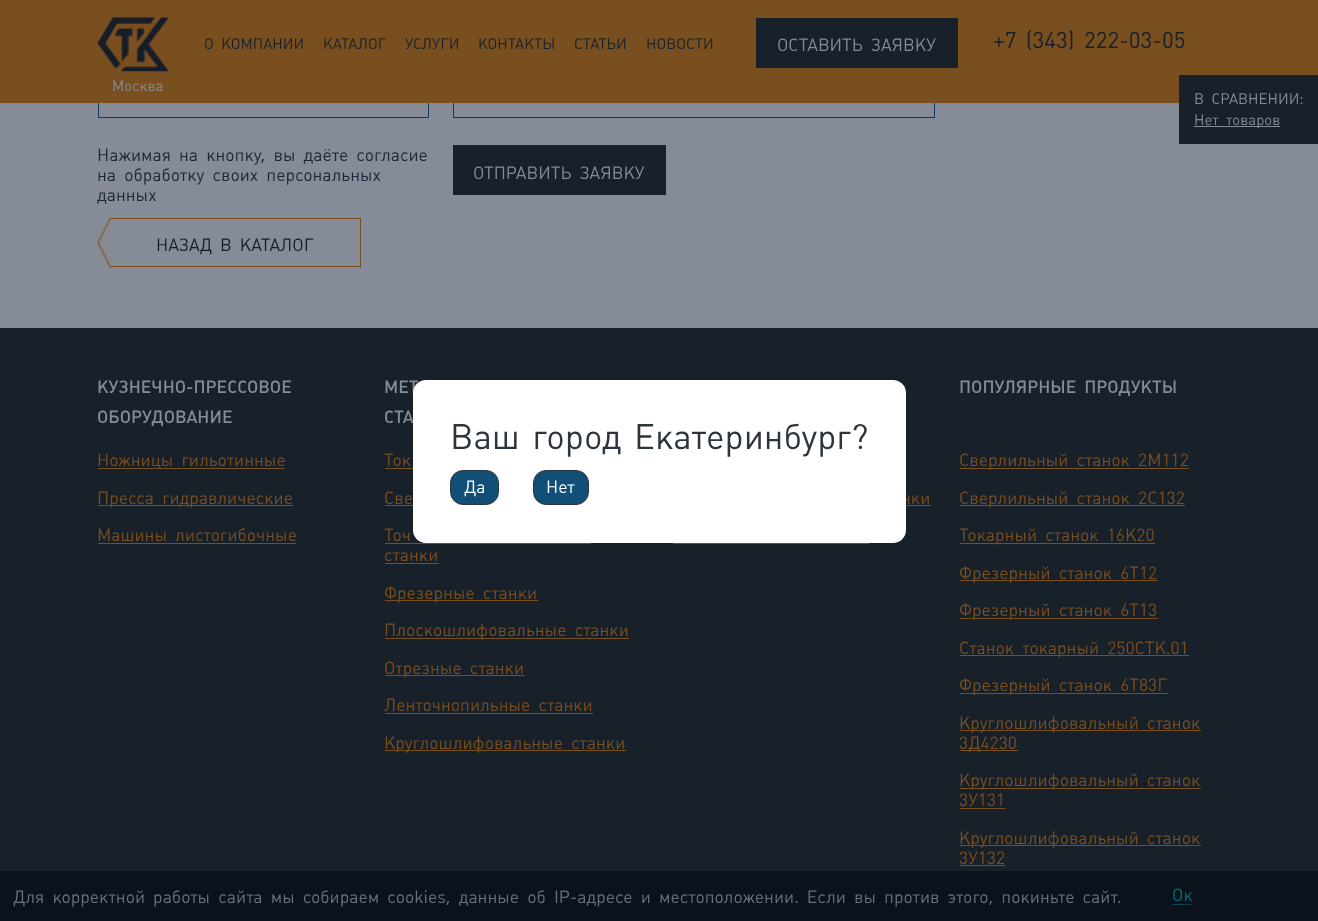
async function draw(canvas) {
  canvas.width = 1318;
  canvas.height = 921;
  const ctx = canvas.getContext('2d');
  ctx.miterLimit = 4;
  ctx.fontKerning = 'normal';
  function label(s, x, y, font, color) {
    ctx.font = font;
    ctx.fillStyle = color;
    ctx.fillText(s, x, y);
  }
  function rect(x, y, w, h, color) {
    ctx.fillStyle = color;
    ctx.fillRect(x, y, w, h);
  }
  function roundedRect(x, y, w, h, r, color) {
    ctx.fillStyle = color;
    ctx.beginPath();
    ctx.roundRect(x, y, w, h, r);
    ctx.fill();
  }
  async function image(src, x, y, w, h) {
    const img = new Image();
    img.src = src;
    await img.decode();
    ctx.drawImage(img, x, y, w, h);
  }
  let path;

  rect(0, 0, 1318, 921, '#858c97');
  ctx.strokeStyle = '#153957';
  ctx.strokeRect(98.5, 60.5, 330, 57);
  ctx.strokeRect(453.5, -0.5, 481, 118);
  rect(0, 0, 1318, 103, '#794f1f');
  await image('assets/img1.png', 97, 17, 72, 55);
  ctx.wordSpacing = '3.75px';
  label('О КОМПАНИИ', 204, 49, '15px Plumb', '#18202a');
  ctx.wordSpacing = '0px';
  label('КАТАЛОГ', 323, 49, '15px Plumb', '#18202a');
  label('УСЛУГИ', 405, 49, '15px Plumb', '#18202a');
  label('КОНТАКТЫ', 478, 49, '15px Plumb', '#18202a');
  label('СТАТЬИ', 574, 49, '15px Plumb', '#18202a');
  label('НОВОСТИ', 646, 49, '15px Plumb', '#18202a');
  rect(756, 18, 202, 50, '#18202a');
  ctx.wordSpacing = '3.75px';
  label('ОСТАВИТЬ ЗАЯВКУ', 777, 51, '17.5px Plumb', '#858c97');
  label('+7 (343)', 993, 48, '22.5px Plumb', '#18202a');
  ctx.wordSpacing = '0px';
  label('222-03-05', 1084, 48, '22.5px Plumb', '#18202a');
  label('Москва', 112, 91, '15px Plumb', '#858c97');
  rect(1179, 75, 139, 69, '#18202a');
  ctx.wordSpacing = '3.75px';
  label('В СРАВНЕНИИ:', 1194, 104, '15px Plumb', '#858c97');
  rect(1194, 126, 86, 1, '#858c97');
  label('Нет товаров', 1194, 125, '15px Plumb', '#858c97');
  label('Нажимая на кнопку, вы даёте согласие', 97, 161, '17.5px Plumb', '#1b2736');
  label('на обработку своих персональных', 97, 181, '17.5px Plumb', '#1b2736');
  ctx.wordSpacing = '0px';
  label('данных', 97, 201, '17.5px Plumb', '#1b2736');
  rect(453, 145, 213, 50, '#18202a');
  ctx.wordSpacing = '3.75px';
  label('ОТПРАВИТЬ ЗАЯВКУ', 473, 179, '17.5px Plumb', '#858c97');
  rect(111, 218, 250, 1, '#794f1f');
  rect(360, 218, 1, 50, '#794f1f');
  rect(111, 266, 250, 1, '#794f1f');
  await image('assets/img2.png', 97, 217, 15, 51);
  label('НАЗАД В КАТАЛОГ', 156, 251, '17.5px Plumb', '#101e30');
  rect(0, 328, 1318, 543, '#18202a');
  ctx.wordSpacing = '0px';
  label('КУЗНЕЧНО-ПРЕССОВОЕ', 97, 393, '500 17.5px Plumb', '#858c97');
  label('ОБОРУДОВАНИЕ', 97, 423, '500 17.5px Plumb', '#858c97');
  label('МЕТ', 384, 393, '500 17.5px Plumb', '#858c97');
  label('СТА', 384, 423, '500 17.5px Plumb', '#858c97');
  ctx.wordSpacing = '3.75px';
  label('ПОПУЛЯРНЫЕ ПРОДУКТЫ', 959, 393, '500 17.5px Plumb', '#858c97');
  rect(98, 468, 187, 1, '#794f1f');
  label('Ножницы гильотинные', 97, 466, '17.5px Plumb', '#794f1f');
  rect(98, 505, 195, 1, '#794f1f');
  label('Пресса гидравлические', 97, 504, '17.5px Plumb', '#794f1f');
  label('Машины листогибочные', 97, 541, '17.5px Plumb', '#794f1f');
  rect(98, 543, 198, 1, '#794f1f');
  label('Ток', 384, 466, '17.5px Plumb', '#794f1f');
  rect(385, 468, 28, 1, '#794f1f');
  label('Све', 384, 504, '17.5px Plumb', '#794f1f');
  rect(385, 505, 28, 1, '#794f1f');
  ctx.wordSpacing = '0px';
  label('Точ', 384, 541, '17.5px Plumb', '#794f1f');
  rect(385, 543, 206, 1, '#794f1f');
  label('станки', 384, 561, '17.5px Plumb', '#794f1f');
  rect(385, 563, 54, 1, '#794f1f');
  rect(385, 600, 153, 1, '#794f1f');
  ctx.wordSpacing = '3.75px';
  label('Фрезерные станки', 384, 599, '17.5px Plumb', '#794f1f');
  rect(385, 638, 244, 1, '#794f1f');
  label('Плоскошлифовальные станки', 384, 636, '17.5px Plumb', '#794f1f');
  rect(385, 675, 140, 1, '#794f1f');
  label('Отрезные станки', 384, 674, '17.5px Plumb', '#794f1f');
  label('Ленточнопильные станки', 384, 711, '17.5px Plumb', '#794f1f');
  rect(385, 713, 208, 1, '#794f1f');
  rect(385, 750, 241, 1, '#794f1f');
  label('Круглошлифовальные станки', 384, 749, '17.5px Plumb', '#794f1f');
  label('нки', 901, 504, '17.5px Plumb', '#794f1f');
  rect(906, 505, 25, 1, '#794f1f');
  rect(673, 543, 196, 1, '#794f1f');
  rect(960, 468, 229, 1, '#794f1f');
  label('Сверлильный станок 2М112', 959, 466, '17.5px Plumb', '#794f1f');
  rect(960, 505, 225, 1, '#794f1f');
  label('Сверлильный станок 2С132', 959, 504, '17.5px Plumb', '#794f1f');
  rect(960, 543, 195, 1, '#794f1f');
  label('Токарный станок 16К20', 959, 541, '17.5px Plumb', '#794f1f');
  rect(960, 580, 198, 1, '#794f1f');
  label('Фрезерный станок 6Т12', 959, 579, '17.5px Plumb', '#794f1f');
  rect(960, 618, 198, 1, '#794f1f');
  label('Фрезерный станок 6Т13', 959, 616, '17.5px Plumb', '#794f1f');
  rect(960, 655, 229, 1, '#794f1f');
  label('Станок токарный 250СТК.01', 959, 654, '17.5px Plumb', '#794f1f');
  rect(960, 693, 208, 1, '#794f1f');
  label('Фрезерный станок 6Т83Г', 959, 691, '17.5px Plumb', '#794f1f');
  rect(960, 730, 241, 1, '#794f1f');
  label('Круглошлифовальный станок', 959, 729, '17.5px Plumb', '#794f1f');
  rect(960, 750, 58, 1, '#794f1f');
  ctx.wordSpacing = '0px';
  label('3Д4230', 959, 749, '17.5px Plumb', '#794f1f');
  rect(960, 788, 241, 1, '#794f1f');
  ctx.wordSpacing = '3.75px';
  label('Круглошлифовальный станок', 959, 786, '17.5px Plumb', '#794f1f');
  ctx.wordSpacing = '0px';
  label('3У131', 959, 806, '17.5px Plumb', '#794f1f');
  rect(960, 808, 45, 1, '#794f1f');
  rect(960, 845, 241, 1, '#794f1f');
  ctx.wordSpacing = '3.75px';
  label('Круглошлифовальный станок', 959, 844, '17.5px Plumb', '#794f1f');
  ctx.wordSpacing = '0px';
  label('3У132', 959, 864, '17.5px Plumb', '#794f1f');
  rect(960, 865, 45, 1, '#794f1f');
  roundedRect(413, 380, 493, 163, 13, '#fff');
  ctx.wordSpacing = '3.75px';
  label('Ваш город Екатеринбург?', 450, 449, '35px Plumb', '#2c343d');
  ctx.fillStyle = '#124f77';
  ctx.beginPath();
  ctx.roundRect(450.5, 470.5, 48, 34, 12.5);
  ctx.fill();
  ctx.strokeStyle = '#2c343d';
  ctx.stroke();
  ctx.wordSpacing = '0px';
  label('Да', 464, 493, '17.5px Plumb', '#fff');
  ctx.fillStyle = '#124f77';
  ctx.beginPath();
  ctx.roundRect(533.5, 470.5, 55, 34, 12.5);
  ctx.fill();
  ctx.stroke();
  label('Нет', 546, 493, '17.5px Plumb', '#fff');
  rect(0, 871, 1318, 50, '#0a121c');
  ctx.wordSpacing = '3.75px';
  label('Для корректной работы сайта мы собираем cookies, данные об IP-адресе и местоположении. Если вы против этого, покиньте сайт.', 13, 903, '17.5px Plumb', '#6a717c');
  ctx.wordSpacing = '0px';
  label('Ок', 1172, 901, '17.5px Plumb', '#0a717c');
  path = new Path2D('M1172.5 904.5H1192.5');
  ctx.strokeStyle = '#0a717c';
  ctx.lineWidth = 1.2;
  ctx.setLineDash([1.25, 1.25]);
  ctx.stroke(path);
}

draw(document.querySelector('canvas'));
